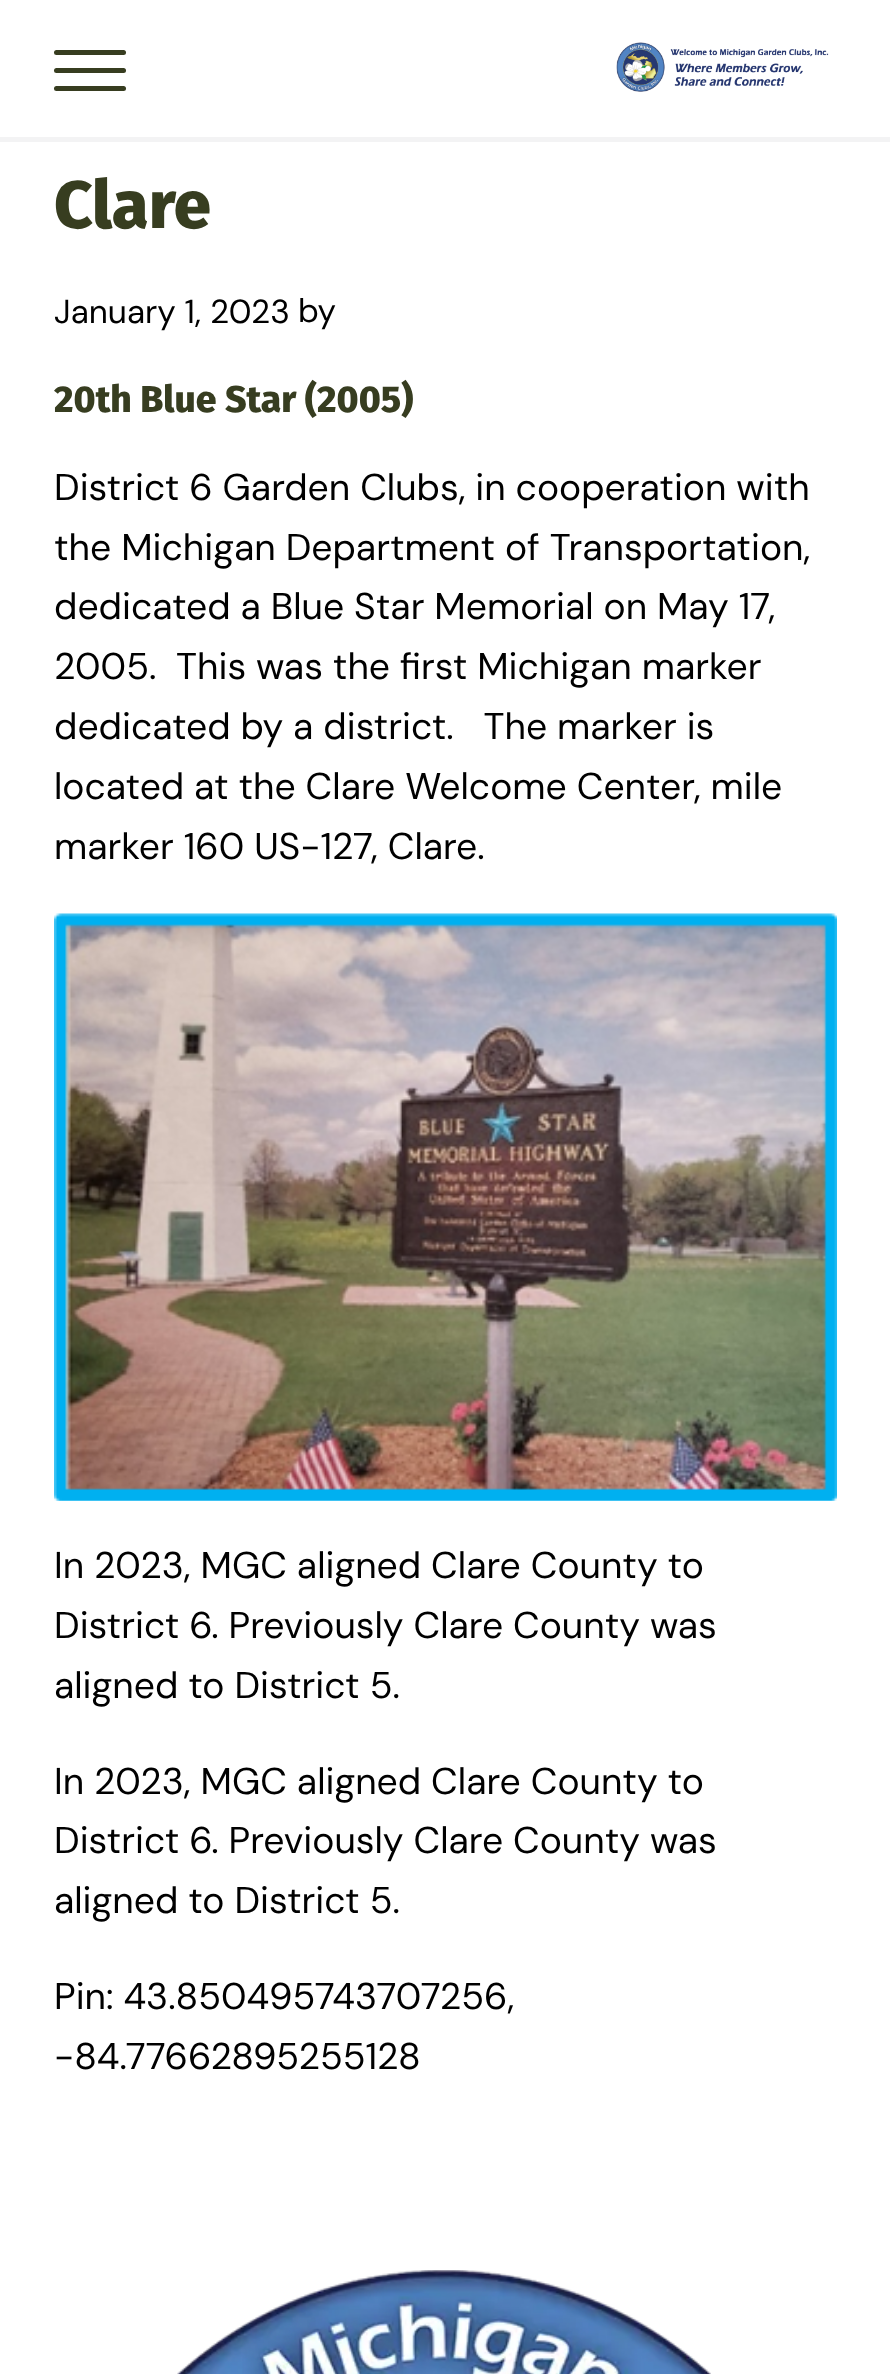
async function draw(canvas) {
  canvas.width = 890;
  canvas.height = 2374;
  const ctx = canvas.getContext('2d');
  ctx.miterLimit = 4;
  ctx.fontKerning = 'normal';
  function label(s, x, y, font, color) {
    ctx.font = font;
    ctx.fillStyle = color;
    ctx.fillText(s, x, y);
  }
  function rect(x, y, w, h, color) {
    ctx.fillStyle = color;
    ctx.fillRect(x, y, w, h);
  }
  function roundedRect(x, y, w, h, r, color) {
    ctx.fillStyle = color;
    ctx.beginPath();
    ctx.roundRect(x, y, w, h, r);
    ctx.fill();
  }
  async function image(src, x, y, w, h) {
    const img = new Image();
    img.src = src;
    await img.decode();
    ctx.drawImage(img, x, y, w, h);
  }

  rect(0, 0, 890, 2374, '#fff');
  rect(0, 137, 890, 5, '#f3f3f4');
  roundedRect(54, 68, 72, 5, 2.5, '#373d20');
  roundedRect(54, 50, 72, 5, 2.5, '#373d20');
  roundedRect(54, 86, 72, 5, 2.5, '#373d20');
  await image('assets/img1.png', 616, 42, 213, 50);
  label('Clare', 54, 228, '800 67px Fira Sans', '#373d20');
  label('January 1, 2023', 54, 323, '33.25px DM Sans', '#000');
  label('by', 298, 322, '33.25px DM Sans', '#000');
  label('20th Blue Star (2005)', 54, 412, '800 37.3px Fira Sans', '#373d20');
  label('District 6 Garden Clubs, in cooperation with', 54, 500, '37.3px DM Sans', '#000');
  label('the Michigan Department of Transportation,', 54, 560, '37.3px DM Sans', '#000');
  label('dedicated a Blue Star Memorial on May 17,', 54, 619, '37.3px DM Sans', '#000');
  label('2005.  This was the first Michigan marker', 54, 679, '37.3px DM Sans', '#000');
  label('dedicated by a district.   The marker is', 54, 739, '37.3px DM Sans', '#000');
  label('located at the Clare Welcome Center, mile', 54, 799, '37.3px DM Sans', '#000');
  label('marker 160 US-127, Clare.', 54, 859, '37.3px DM Sans', '#000');
  await image('assets/img2.png', 54, 913, 783, 588);
  label('In 2023, MGC aligned Clare County to', 54, 1578, '37.3px DM Sans', '#000');
  label('District 6. Previously Clare County was', 54, 1638, '37.3px DM Sans', '#000');
  label('aligned to District 5.', 54, 1698, '37.3px DM Sans', '#000');
  label('In 2023, MGC aligned Clare County to', 54, 1794, '37.3px DM Sans', '#000');
  label('District 6. Previously Clare County was', 54, 1853, '37.3px DM Sans', '#000');
  label('aligned to District 5.', 54, 1913, '37.3px DM Sans', '#000');
  label('Pin: 43.850495743707256,', 54, 2009, '37.3px DM Sans', '#000');
  label('-84.77662895255128', 54, 2069, '37.3px DM Sans', '#000');
  await image('assets/img3.png', 177, 2270, 534, 104);
}

draw(document.querySelector('canvas'));
